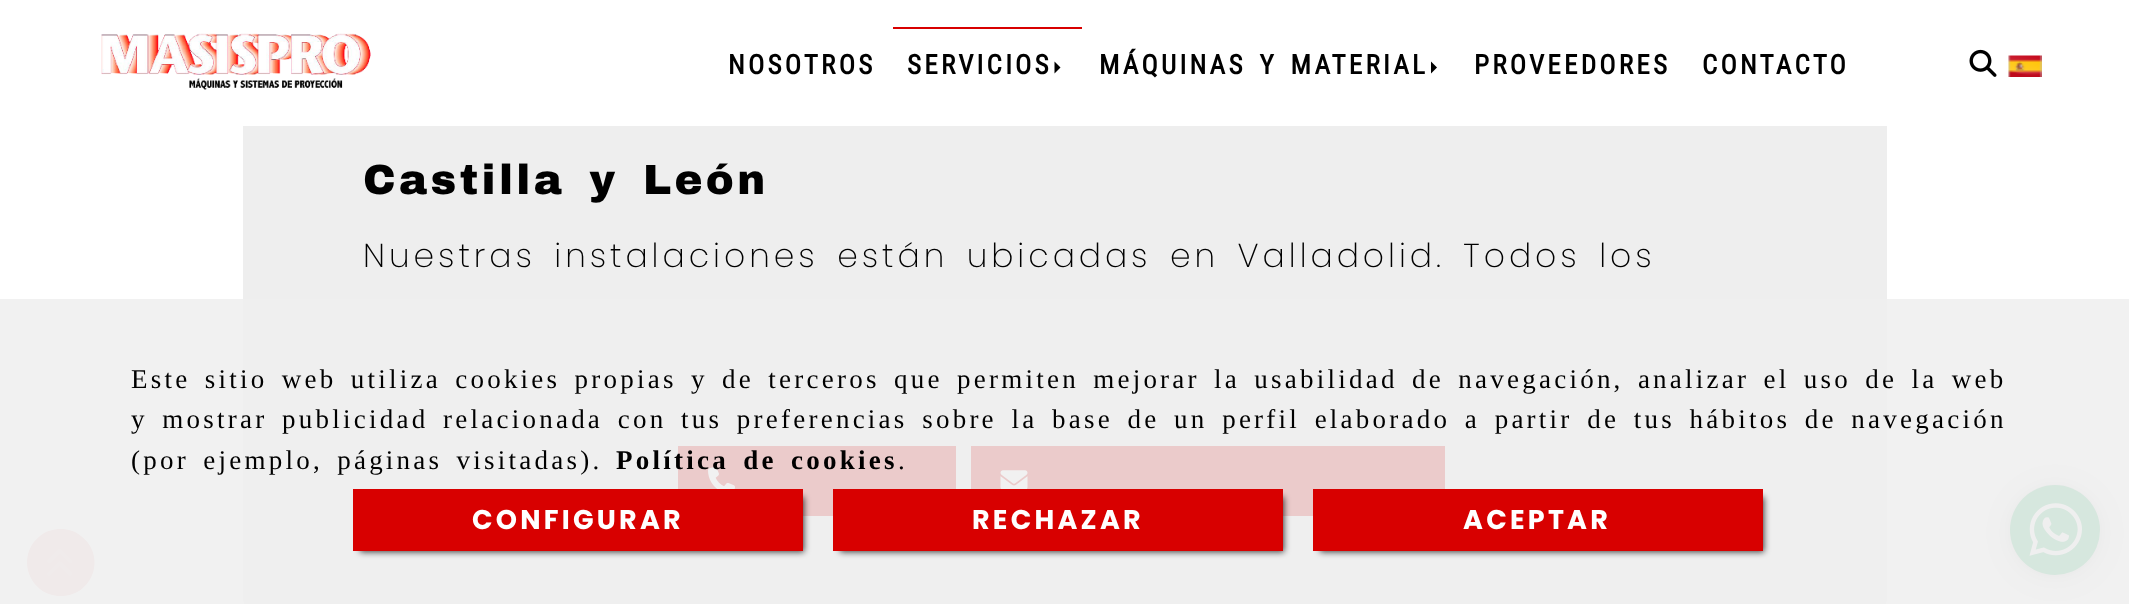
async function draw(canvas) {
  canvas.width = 2129;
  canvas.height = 604;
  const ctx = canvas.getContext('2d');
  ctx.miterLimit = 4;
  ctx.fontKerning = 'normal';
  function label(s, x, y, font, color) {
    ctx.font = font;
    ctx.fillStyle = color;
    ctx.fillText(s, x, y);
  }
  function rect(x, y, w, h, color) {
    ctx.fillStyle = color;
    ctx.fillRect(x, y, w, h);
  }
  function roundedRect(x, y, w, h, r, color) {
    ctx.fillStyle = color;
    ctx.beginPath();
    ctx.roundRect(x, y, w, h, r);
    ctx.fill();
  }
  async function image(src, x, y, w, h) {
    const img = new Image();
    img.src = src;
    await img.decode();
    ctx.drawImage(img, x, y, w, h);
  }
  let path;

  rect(0, 0, 2129, 604, '#fff');
  roundedRect(243, -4, 1644, 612, 9, '#eee');
  rect(243, 0, 1644, 126, '#fff');
  await image('assets/img1.png', 101, 33, 270, 57);
  ctx.letterSpacing = '3.24px';
  label('NOSOTROS', 728, 74, 'bold 27px Roboto Condensed', '#000');
  rect(893, 27, 189, 2, '#d80000');
  label('SERVICIOS', 907, 74, 'bold 27px Roboto Condensed', '#000');
  path = new Path2D('M1054.5 73.5V61.5L1060.5 67.5Z');
  ctx.fill(path);
  ctx.wordSpacing = '4.3px';
  label('MÁQUINAS Y MATERIAL', 1099, 74, 'bold 27px Roboto Condensed', '#000');
  path = new Path2D('M1431 73.5V61.5L1437 67.5Z');
  ctx.fill(path);
  ctx.wordSpacing = '0px';
  label('PROVEEDORES', 1474, 74, 'bold 27px Roboto Condensed', '#000');
  label('CONTACTO', 1702, 74, 'bold 27px Roboto Condensed', '#000');
  await image('assets/img2.png', 1969, 49, 28, 28);
  await image('assets/img3.png', 2008, 55, 34, 22);
  ctx.letterSpacing = '3.4px';
  ctx.wordSpacing = '7px';
  label('Castilla y León', 363, 194, '900 42px Archivo Black', '#000');
  ctx.letterSpacing = '3.95px';
  ctx.wordSpacing = '5.25px';
  label('Nuestras instalaciones están ubicadas en Valladolid. Todos los', 363, 267, '200 33px Poppins', '#000');
  rect(678, 446, 278, 70, '#d80000');
  await image('assets/img4.png', 708, 466, 27, 23);
  rect(971, 446, 474, 70, '#d80000');
  await image('assets/img5.png', 1000, 470, 28, 19);
  ctx.fillStyle = '#f7cccc';
  path = new Path2D('M61 596C93 596 107 556 81 536C75 531 68 529 61 529C53 529 46 531 40 536C15 556 29 596 61 596Z');
  ctx.fill(path);
  await image('assets/img6.png', 47, 549, 25, 27);
  ctx.fillStyle = '#00000033';
  ctx.filter = 'blur(24px)';
  ctx.beginPath();
  ctx.roundRect(2010, 488, 90, 90, 45);
  ctx.fill();
  ctx.filter = 'none';
  ctx.fillStyle = '#0000001a';
  ctx.filter = 'blur(4.5px)';
  ctx.beginPath();
  ctx.roundRect(2010, 486, 90, 90, 45);
  ctx.fill();
  ctx.filter = 'none';
  ctx.fillStyle = '#4eb980';
  ctx.beginPath();
  ctx.arc(2055, 530, 45, 0, 2 * Math.PI);
  ctx.fill();
  await image('assets/img7.png', 2029, 503, 53, 53);
  rect(0, 299, 2129, 305, '#eeeeeed9');
  ctx.letterSpacing = '3.24px';
  ctx.wordSpacing = '4.3px';
  label('Este sitio web utiliza cookies propias y de terceros que permiten mejorar la usabilidad de navegación, analizar el uso de la web', 131, 388, '27px Liberation Serif', '#000');
  ctx.wordSpacing = '4.6px';
  label('y mostrar publicidad relacionada con tus preferencias sobre la base de un perfil elaborado a partir de tus hábitos de navegación', 131, 428, '27px Liberation Serif', '#000');
  ctx.wordSpacing = '4.3px';
  label('(por ejemplo, páginas visitadas).', 131, 469, '27px Liberation Serif', '#000');
  label('Política de cookies', 616, 469, 'bold 27px Liberation Serif', '#000');
  ctx.wordSpacing = '0px';
  label('.', 898, 469, '27px Liberation Serif', '#000');
  ctx.fillStyle = '#000000bf';
  ctx.filter = 'blur(3px)';
  ctx.beginPath();
  ctx.rect(360, 497, 444, 55);
  ctx.fill();
  ctx.filter = 'none';
  rect(353, 489, 450, 62, '#d80000');
  label('CONFIGURAR', 472, 529, 'bold 27px Poppins', '#fff');
  ctx.fillStyle = '#000000bf';
  ctx.filter = 'blur(3px)';
  ctx.beginPath();
  ctx.rect(840, 497, 444, 55);
  ctx.fill();
  ctx.filter = 'none';
  rect(833, 489, 450, 62, '#d80000');
  label('RECHAZAR', 972, 529, 'bold 27px Poppins', '#fff');
  ctx.fillStyle = '#000000bf';
  ctx.filter = 'blur(3px)';
  ctx.beginPath();
  ctx.rect(1320, 497, 444, 55);
  ctx.fill();
  ctx.filter = 'none';
  rect(1313, 489, 450, 62, '#d80000');
  label('ACEPTAR', 1463, 529, 'bold 27px Poppins', '#fff');
}

draw(document.querySelector('canvas'));
